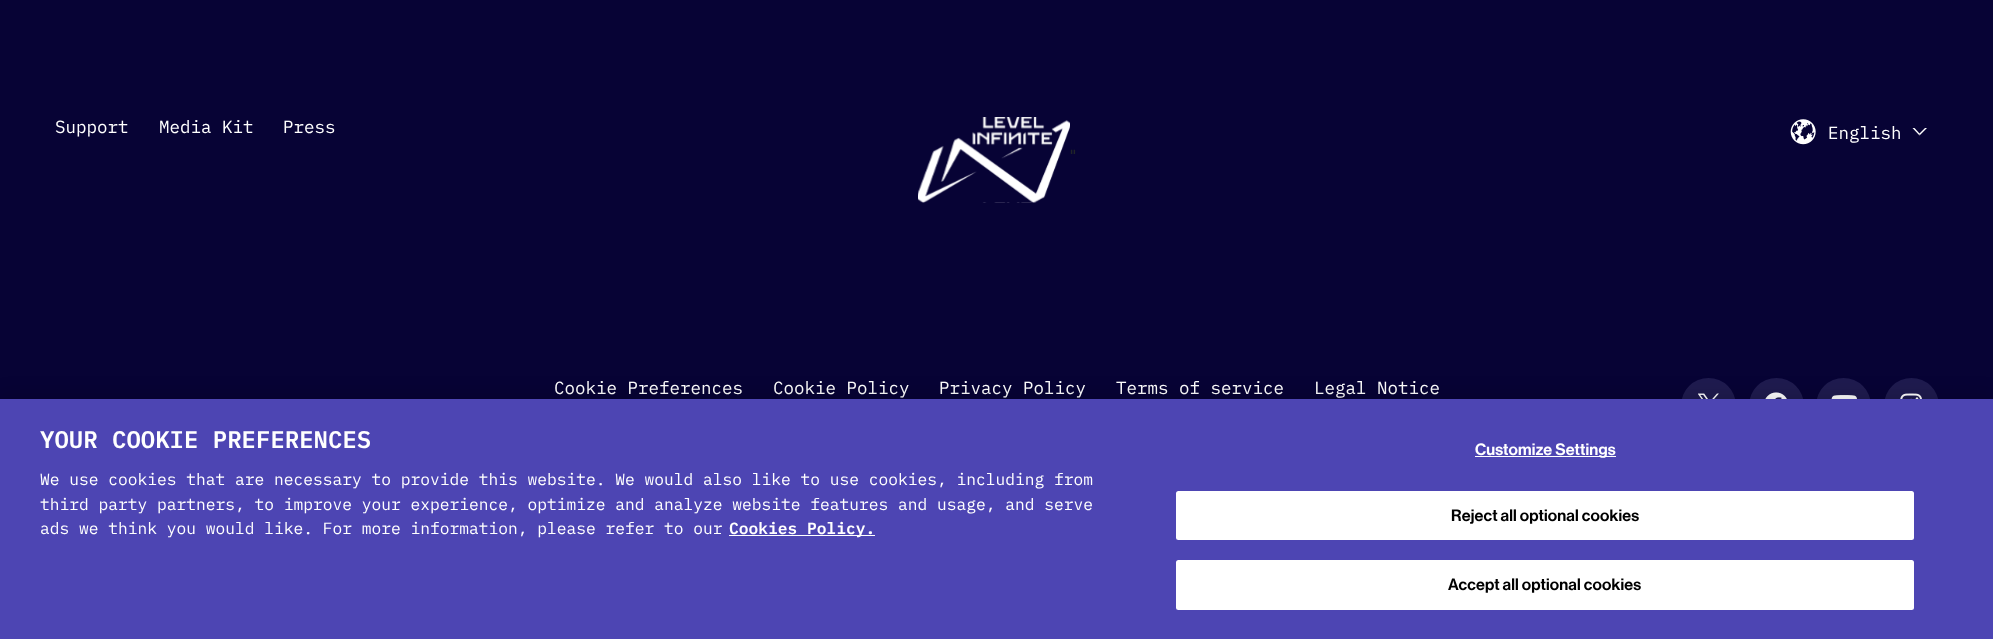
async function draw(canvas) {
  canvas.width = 1993;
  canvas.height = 639;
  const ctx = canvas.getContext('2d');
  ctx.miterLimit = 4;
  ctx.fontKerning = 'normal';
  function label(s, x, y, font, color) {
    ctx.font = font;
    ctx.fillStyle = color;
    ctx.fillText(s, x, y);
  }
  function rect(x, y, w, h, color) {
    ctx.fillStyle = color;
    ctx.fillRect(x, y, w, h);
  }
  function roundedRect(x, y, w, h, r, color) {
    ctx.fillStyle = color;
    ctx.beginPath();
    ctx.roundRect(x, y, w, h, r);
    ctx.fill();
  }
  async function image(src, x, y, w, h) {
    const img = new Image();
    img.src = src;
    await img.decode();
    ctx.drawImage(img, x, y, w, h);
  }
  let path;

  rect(0, 0, 1993, 639, '#070335');
  label('Support', 55, 133, '17.5px IBM Plex Mono', '#fff');
  label('Media Kit', 159, 133, '17.5px IBM Plex Mono', '#fff');
  label('Press', 283, 133, '17.5px IBM Plex Mono', '#fff');
  await image('assets/img1.png', 1790, 119, 26, 26);
  label('English', 1828, 139, '17.5px IBM Plex Mono', '#fff');
  path = new Path2D('M1919.5 135.5L1912.5 128H1914.5L1919.5 133.5Z');
  ctx.fill(path);
  path = new Path2D('M1927 128L1919.5 135.5V133.5L1925 128Z');
  ctx.fill(path);
  await image('assets/img2.png', 918, 117, 152, 86);
  label('"', 1070, 164, '20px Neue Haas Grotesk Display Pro', '#212529');
  label('Cookie Preferences', 554, 394, '17.5px IBM Plex Mono', '#fff');
  label('Cookie Policy', 773, 394, '17.5px IBM Plex Mono', '#fff');
  label('Privacy Policy', 939, 394, '17.5px IBM Plex Mono', '#fff');
  label('Terms of service', 1116, 394, '17.5px IBM Plex Mono', '#fff');
  label('Legal Notice', 1314, 394, '17.5px IBM Plex Mono', '#fff');
  ctx.fillStyle = '#1f1b4f';
  ctx.beginPath();
  ctx.arc(1708.5, 405.5, 27.5, 0, 2 * Math.PI);
  ctx.fill();
  await image('assets/img3.png', 1698, 393, 21, 6);
  ctx.beginPath();
  ctx.arc(1776.5, 405.5, 27.5, 0, 2 * Math.PI);
  ctx.fill();
  await image('assets/img4.png', 1765, 392, 22, 7);
  ctx.beginPath();
  ctx.arc(1843.5, 405.5, 27.5, 0, 2 * Math.PI);
  ctx.fill();
  await image('assets/img5.png', 1831, 395, 26, 4);
  ctx.beginPath();
  ctx.arc(1911.5, 405.5, 27.5, 0, 2 * Math.PI);
  ctx.fill();
  await image('assets/img6.png', 1900, 393, 22, 6);
  ctx.fillStyle = '#00000033';
  ctx.filter = 'blur(11px)';
  ctx.beginPath();
  ctx.rect(0, 399, 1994, 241);
  ctx.fill();
  ctx.filter = 'none';
  rect(0, 399, 1993, 240, '#4d45b3');
  label('YOUR COOKIE PREFERENCES', 40, 448, '600 24px IBM Plex Mono', '#fff');
  label('We use cookies that are necessary to provide this website. We would also like to use cookies, including from', 40, 485, '16.25px IBM Plex Mono', '#fff');
  label('third party partners, to improve your experience, optimize and analyze website features and usage, and serve', 40, 510, '16.25px IBM Plex Mono', '#fff');
  label('ads we think you would like. For more information, please refer to our', 40, 534, '16.25px IBM Plex Mono', '#fff');
  rect(729, 535, 146, 1, '#fff');
  label('Cookies Policy.', 729, 534, '600 16.25px IBM Plex Mono', '#fff');
  rect(1475, 456, 141, 1, '#fff');
  ctx.letterSpacing = '0.15px';
  label('Customize Settings', 1475, 455, '600 16.25px Neue Haas Grotesk Display Pro', '#fff');
  roundedRect(1176, 491, 738, 49, 2.5, '#fff');
  label('Reject all optional cookies', 1451, 521, '600 16.25px Neue Haas Grotesk Display Pro', '#000');
  roundedRect(1176, 560, 738, 50, 2.5, '#fff');
  label('Accept all optional cookies', 1448, 590, '600 16.25px Neue Haas Grotesk Display Pro', '#000');
}

draw(document.querySelector('canvas'));
